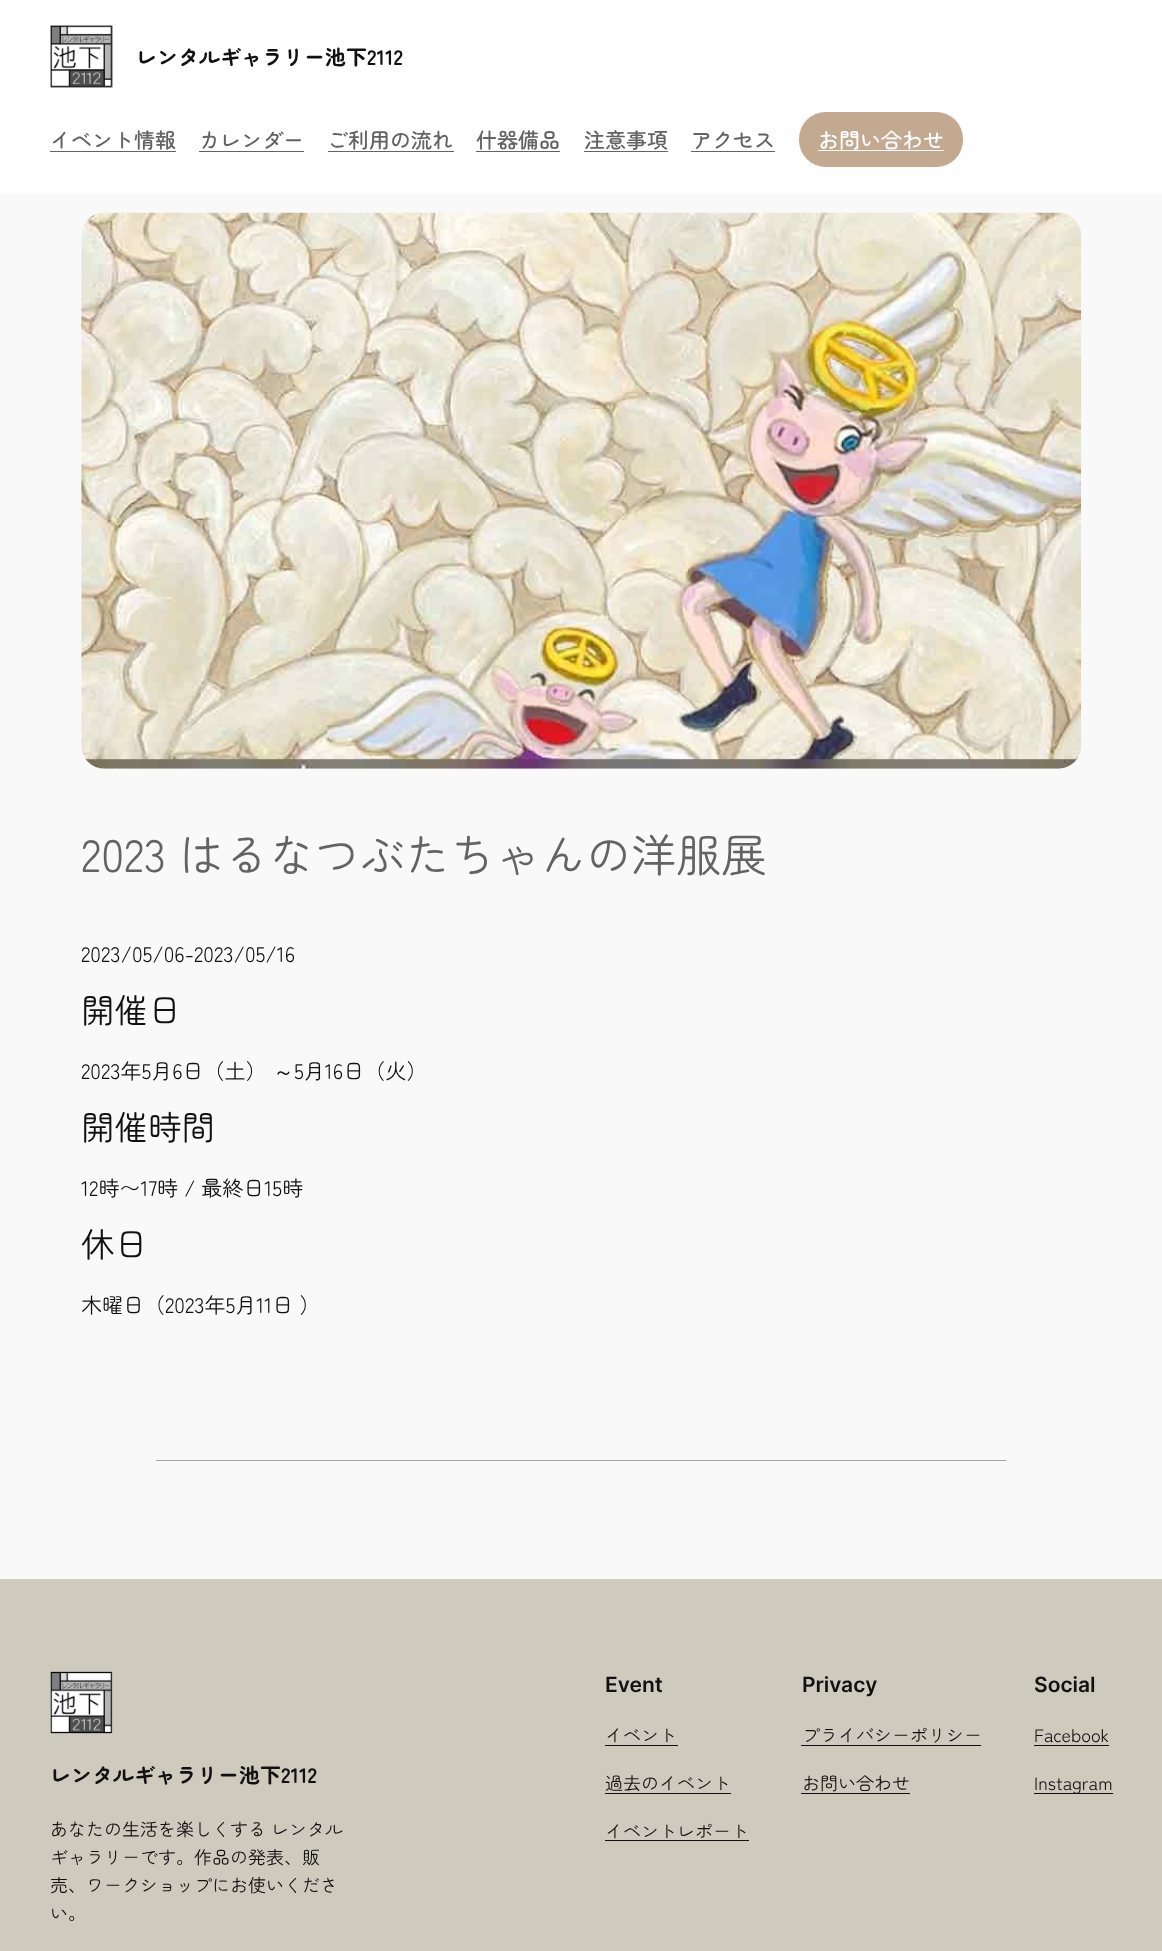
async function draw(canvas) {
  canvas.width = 1162;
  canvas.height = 1951;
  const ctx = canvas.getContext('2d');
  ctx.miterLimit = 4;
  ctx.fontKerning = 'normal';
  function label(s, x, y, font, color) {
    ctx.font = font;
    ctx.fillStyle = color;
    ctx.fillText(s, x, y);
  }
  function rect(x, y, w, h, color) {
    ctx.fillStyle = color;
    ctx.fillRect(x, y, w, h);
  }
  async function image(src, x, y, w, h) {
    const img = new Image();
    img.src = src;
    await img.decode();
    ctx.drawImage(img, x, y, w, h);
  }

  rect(0, 0, 1162, 1951, '#f9f9f9');
  rect(0, 125, 1162, 68, '#fefefe');
  rect(0, 0, 1162, 125, '#fff');
  await image('assets/img1.png', 50, 25, 63, 63);
  label('レンタルギャラリー池下2112', 136, 65, 'bold 21px Zen Maru Gothic', '#111');
  label('イベント情報', 50, 148, '500 21px Zen Maru Gothic', '#636363');
  rect(50, 151, 126, 1, '#636363');
  label('カレンダー', 199, 148, '500 21px Zen Maru Gothic', '#636363');
  rect(199, 151, 105, 1, '#636363');
  label('ご利用の流れ', 327, 148, '500 21px Zen Maru Gothic', '#636363');
  rect(328, 151, 126, 1, '#636363');
  label('什器備品', 476, 148, '500 21px Zen Maru Gothic', '#636363');
  rect(476, 151, 84, 1, '#636363');
  label('注意事項', 584, 148, '500 21px Zen Maru Gothic', '#636363');
  rect(584, 151, 84, 1, '#636363');
  label('アクセス', 691, 148, '500 21px Zen Maru Gothic', '#636363');
  rect(691, 151, 84, 1, '#636363');
  ctx.fillStyle = '#c2a990';
  ctx.beginPath();
  ctx.roundRect(798.5, 111.5, 165, 56, 27.5);
  ctx.fill();
  ctx.strokeStyle = '#fff';
  ctx.stroke();
  label('お問い合わせ', 818, 148, '500 21px Zen Maru Gothic', '#fff');
  rect(818, 150, 126, 1, '#fff');
  await image('assets/img2.png', 81, 212, 1001, 557);
  label('2023 はるなつぶたちゃんの洋服展', 81, 872, '45.25px Zen Maru Gothic', '#636363');
  label('2023/05/06-2023/05/16', 81, 962, '21px Zen Maru Gothic', '#111');
  label('開催日', 81, 1023, '33.5px Zen Maru Gothic', '#111');
  label('2023年5月6日（土）', 81, 1079, '21px Zen Maru Gothic', '#111');
  label('～', 273, 1079, '500 21px WenQuanYi Zen Hei', '#111');
  label('5月16日（火）', 294, 1079, '21px Zen Maru Gothic', '#111');
  label('開催時間', 81, 1140, '33.5px Zen Maru Gothic', '#111');
  label('12時〜17時 / 最終日15時', 81, 1196, '21px Zen Maru Gothic', '#111');
  label('休日', 81, 1257, '33.5px Zen Maru Gothic', '#111');
  label('木曜日（2023年5月11日 ）', 81, 1313, '21px Zen Maru Gothic', '#111');
  rect(156, 1460, 850, 1, '#a4a4a4');
  rect(0, 1579, 1162, 372, '#cfcabe');
  await image('assets/img3.png', 50, 1671, 63, 63);
  label('レンタルギャラリー池下2112', 50, 1783, 'bold 21px Zen Maru Gothic', '#111');
  label('あなたの生活を楽しくする レンタル', 50, 1836, '18px Zen Maru Gothic', '#111');
  label('ギャラリーです。作品の発表、販', 50, 1864, '18px Zen Maru Gothic', '#111');
  label('売、ワークショップにお使いくださ', 50, 1892, '18px Zen Maru Gothic', '#111');
  label('い。', 50, 1920, '18px Zen Maru Gothic', '#111');
  label('Event', 605, 1692, '600 21px Inter', '#111');
  label('イベント', 605, 1742, '18px Zen Maru Gothic', '#111');
  rect(605, 1745, 73, 1, '#111');
  label('過去のイベント', 605, 1790, '18px Zen Maru Gothic', '#111');
  rect(605, 1793, 126, 1, '#111');
  label('イベントレポート', 605, 1838, '18px Zen Maru Gothic', '#111');
  rect(605, 1840, 144, 1, '#111');
  label('Privacy', 802, 1692, '600 21px Inter', '#111');
  label('プライバシーポリシー', 802, 1742, '18px Zen Maru Gothic', '#111');
  rect(801, 1745, 180, 1, '#111');
  label('お問い合わせ', 802, 1790, '18px Zen Maru Gothic', '#111');
  rect(801, 1793, 109, 1, '#111');
  label('Social', 1034, 1692, '600 21px Inter', '#111');
  label('Facebook', 1034, 1742, '18px Zen Maru Gothic', '#111');
  rect(1034, 1745, 75, 1, '#111');
  rect(1034, 1793, 79, 1, '#111');
  label('Instagram', 1034, 1790, '18px Zen Maru Gothic', '#111');
}

draw(document.querySelector('canvas'));
